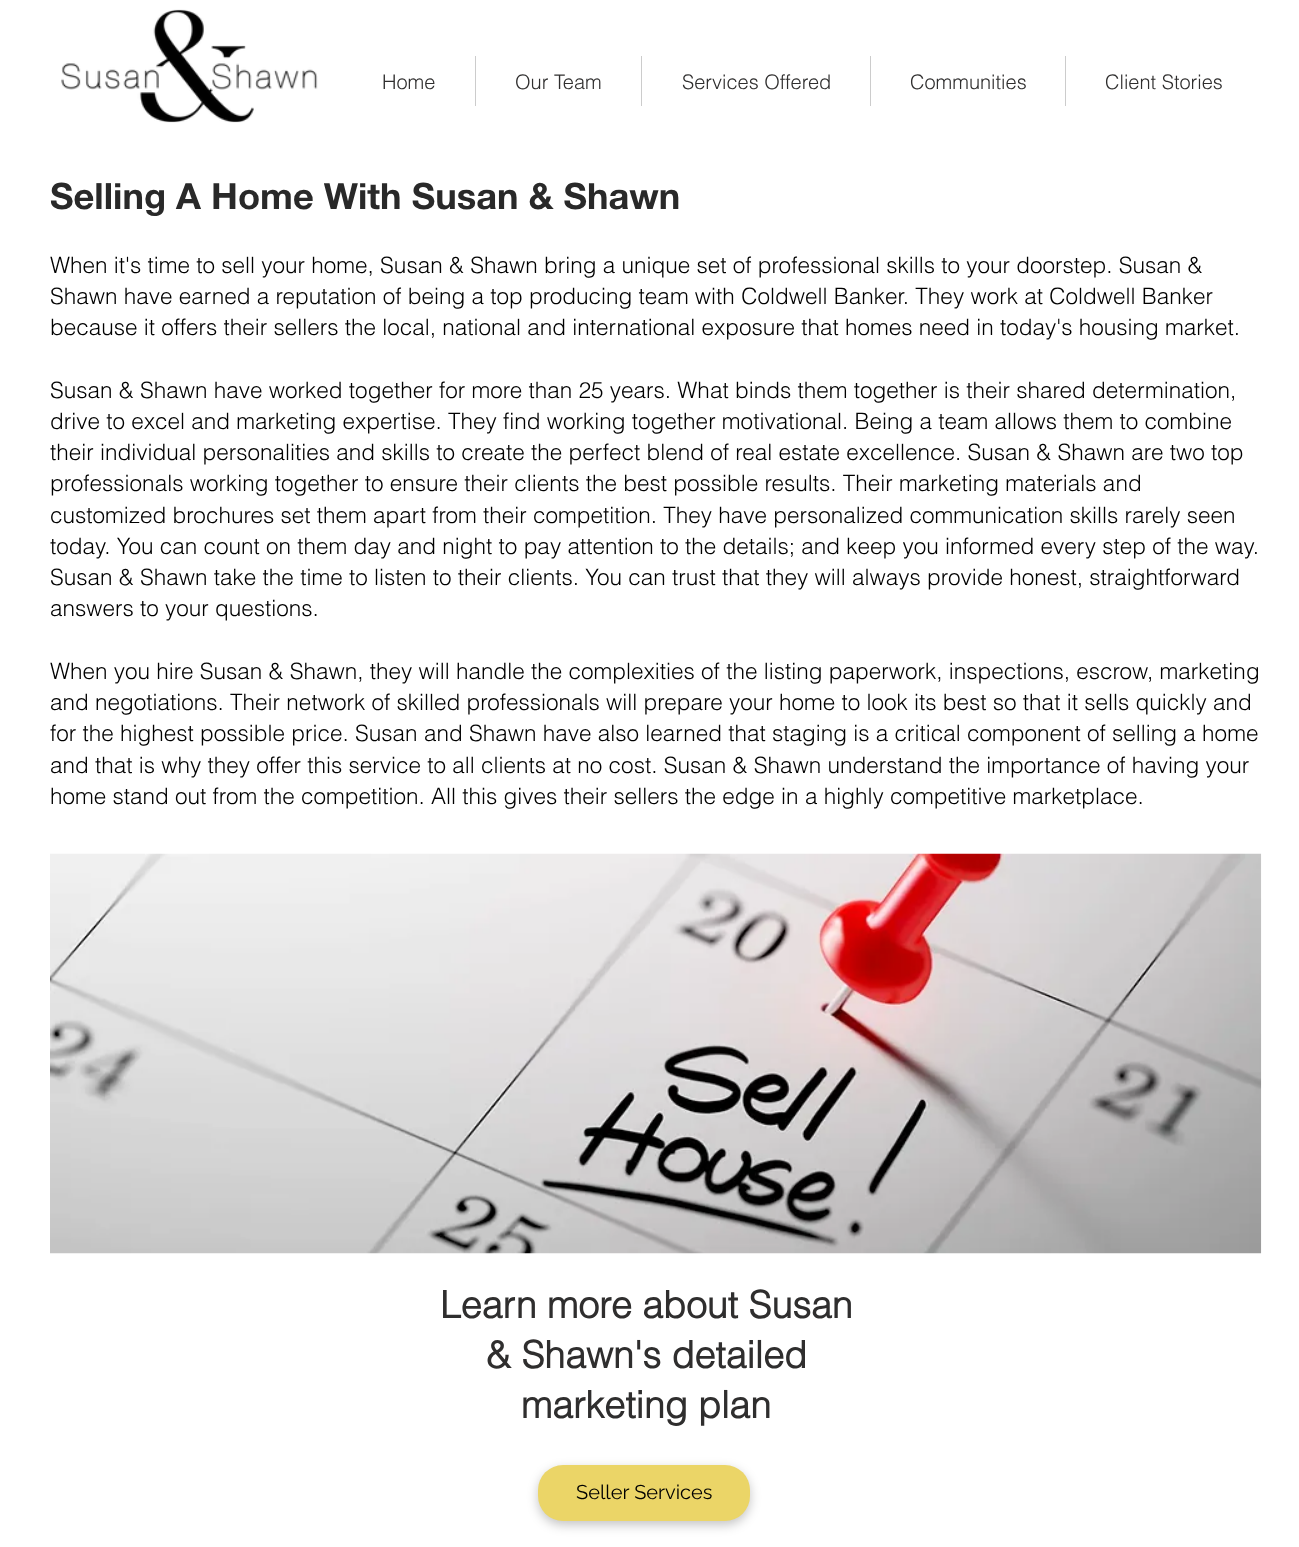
async function draw(canvas) {
  canvas.width = 1299;
  canvas.height = 1547;
  const ctx = canvas.getContext('2d');
  ctx.miterLimit = 4;
  ctx.fontKerning = 'normal';
  function label(s, x, y, font, color) {
    ctx.font = font;
    ctx.fillStyle = color;
    ctx.fillText(s, x, y);
  }
  function rect(x, y, w, h, color) {
    ctx.fillStyle = color;
    ctx.fillRect(x, y, w, h);
  }
  function roundedRect(x, y, w, h, r, color) {
    ctx.fillStyle = color;
    ctx.beginPath();
    ctx.roundRect(x, y, w, h, r);
    ctx.fill();
  }
  async function image(src, x, y, w, h) {
    const img = new Image();
    img.src = src;
    await img.decode();
    ctx.drawImage(img, x, y, w, h);
  }

  rect(0, 0, 1299, 1547, '#fff');
  await image('assets/img1.png', 61, 9, 257, 114);
  label('Home', 382, 89, '300 20px helvetica', '#2f2e2e');
  rect(475, 56, 1, 50, '#ccc');
  label('Our Team', 515, 89, '300 20px helvetica', '#2f2e2e');
  rect(641, 56, 1, 50, '#ccc');
  label('Services Offered', 682, 89, '300 20px helvetica', '#2f2e2e');
  rect(870, 56, 1, 50, '#ccc');
  label('Communities', 910, 89, '300 20px helvetica', '#2f2e2e');
  rect(1065, 56, 1, 50, '#ccc');
  label('Client Stories', 1105, 89, '300 20px helvetica', '#2f2e2e');
  label('Selling A Home With Susan & Shawn', 50, 209, 'bold 36.25px Helvetica Neue', '#292929');
  label('When it\'s time to sell your home, Susan & Shawn bring a unique set of professional skills to your doorstep. Susan &', 50, 273, '300 22.5px helvetica', '#000');
  label('Shawn have earned a reputation of being a top producing team with Coldwell Banker. They work at Coldwell Banker', 50, 304, '300 22.5px helvetica', '#000');
  label('because it offers their sellers the local, national and international exposure that homes need in today\'s housing market.', 50, 335, '300 22.5px helvetica', '#000');
  label('Susan & Shawn have worked together for more than 25 years. What binds them together is their shared determination,', 50, 398, '300 22.5px helvetica', '#000');
  label('drive to excel and marketing expertise. They find working together motivational. Being a team allows them to combine', 50, 429, '300 22.5px helvetica', '#000');
  label('their individual personalities and skills to create the perfect blend of real estate excellence. Susan & Shawn are two top', 50, 460, '300 22.5px helvetica', '#000');
  label('professionals working together to ensure their clients the best possible results. Their marketing materials and', 50, 491, '300 22.5px helvetica', '#000');
  label('customized brochures set them apart from their competition. They have personalized communication skills rarely seen', 50, 523, '300 22.5px helvetica', '#000');
  label('today. You can count on them day and night to pay attention to the details; and keep you informed every step of the way.', 50, 554, '300 22.5px helvetica', '#000');
  label('Susan & Shawn take the time to listen to their clients. You can trust that they will always provide honest, straightforward', 50, 585, '300 22.5px helvetica', '#000');
  label('answers to your questions.', 50, 616, '300 22.5px helvetica', '#000');
  label('When you hire Susan & Shawn, they will handle the complexities of the listing paperwork, inspections, escrow, marketing', 50, 679, '300 22.5px helvetica', '#000');
  label('and negotiations. Their network of skilled professionals will prepare your home to look its best so that it sells quickly and', 50, 710, '300 22.5px helvetica', '#000');
  label('for the highest possible price. Susan and Shawn have also learned that staging is a critical component of selling a home', 50, 741, '300 22.5px helvetica', '#000');
  label('and that is why they offer this service to all clients at no cost. Susan & Shawn understand the importance of having your', 50, 773, '300 22.5px helvetica', '#000');
  label('home stand out from the competition. All this gives their sellers the edge in a highly competitive marketplace.', 50, 804, '300 22.5px helvetica', '#000');
  await image('assets/img2.png', 50, 853, 1212, 401);
  label('Learn more about Susan', 440, 1318, 'bold 37.5px helvetica', '#2f2e2e');
  label('& Shawn\'s detailed', 486, 1368, 'bold 37.5px helvetica', '#2f2e2e');
  label('marketing plan', 521, 1418, 'bold 37.5px helvetica', '#2f2e2e');
  ctx.fillStyle = '#0000003b';
  ctx.filter = 'blur(5.5px)';
  ctx.beginPath();
  ctx.roundRect(538, 1469, 212, 56, 25);
  ctx.fill();
  ctx.filter = 'none';
  roundedRect(538, 1465, 212, 56, 25, '#ebd567');
  label('Seller Services', 576, 1499, '20px Raleway', '#000');
}

draw(document.querySelector('canvas'));
